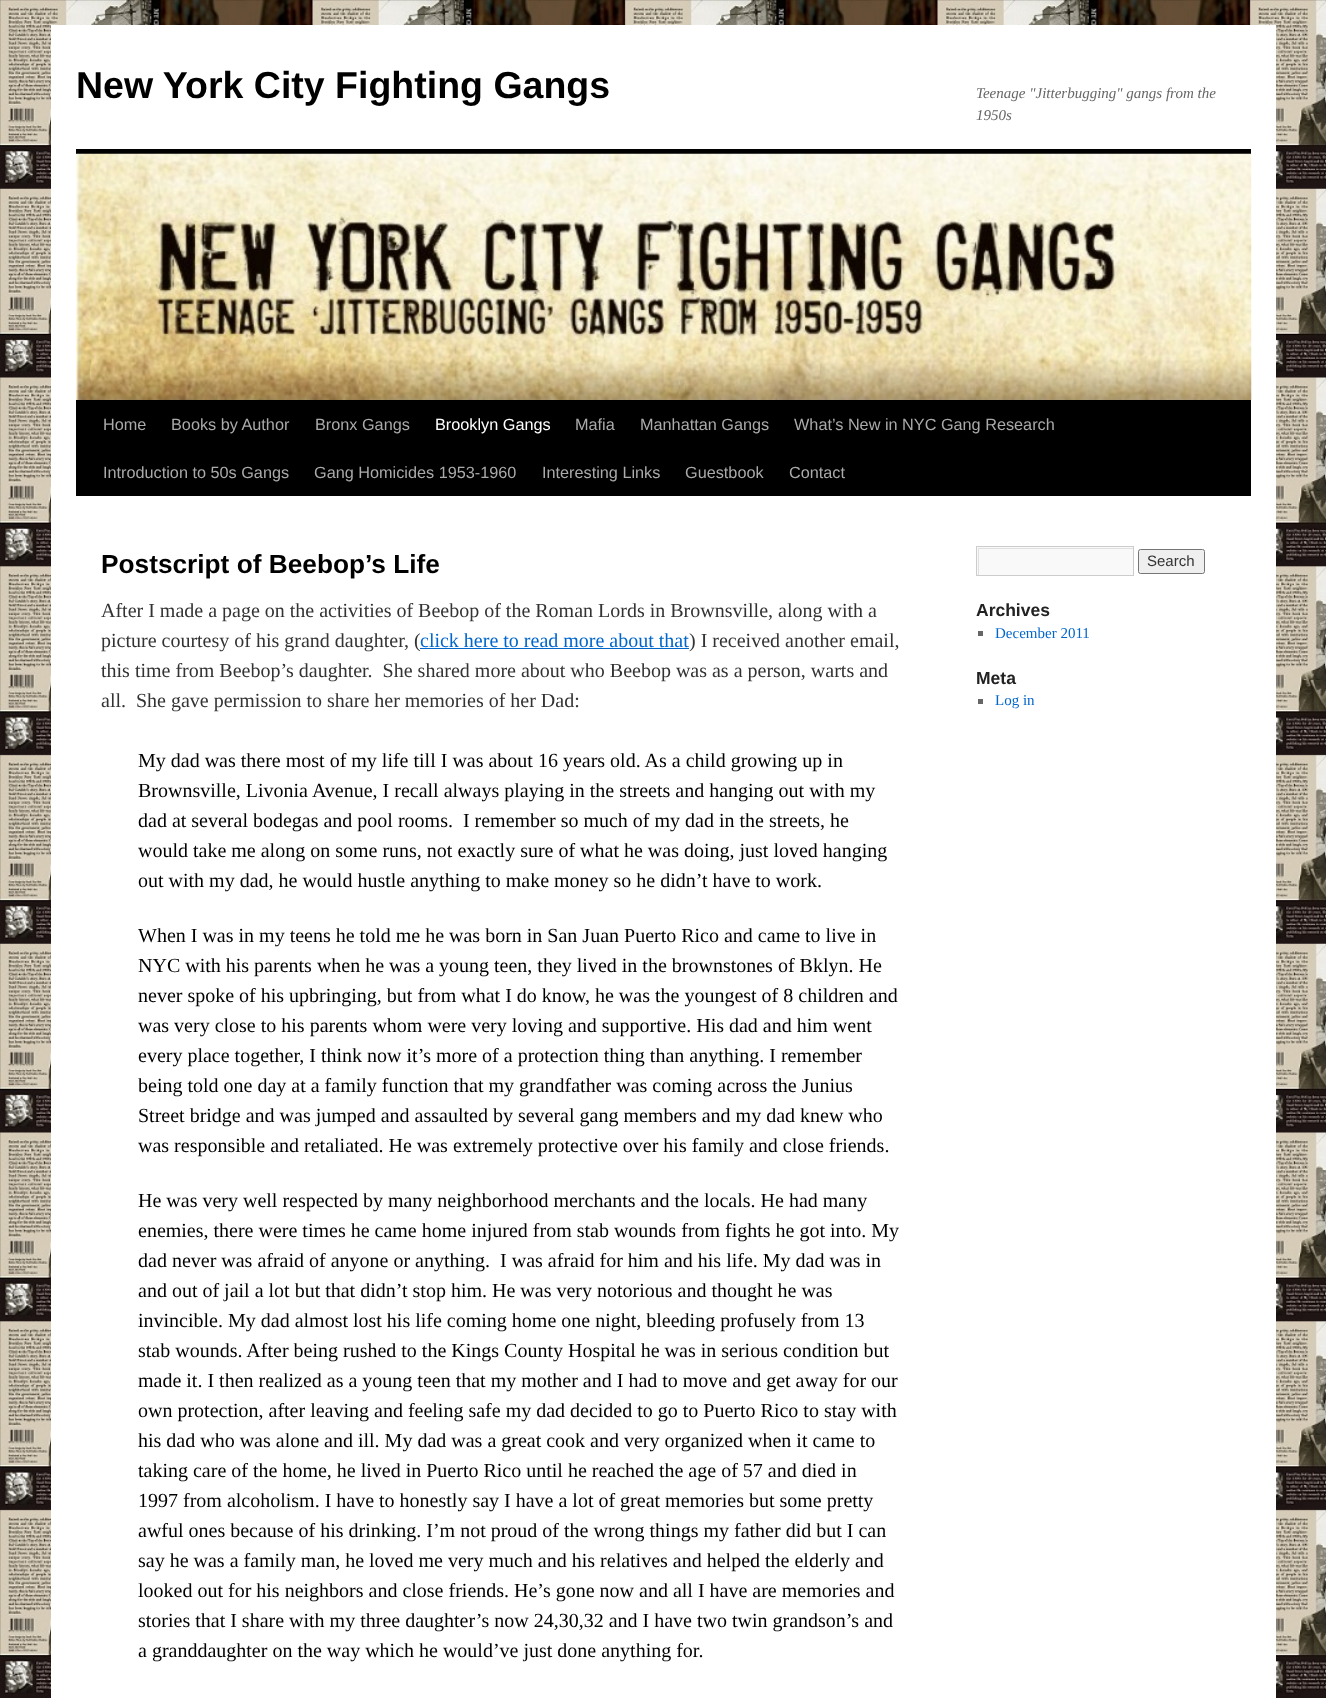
async function draw(canvas) {
  canvas.width = 1326;
  canvas.height = 1698;
  const ctx = canvas.getContext('2d');
  ctx.miterLimit = 4;
  ctx.fontKerning = 'normal';
  function label(s, x, y, font, color) {
    ctx.font = font;
    ctx.fillStyle = color;
    ctx.fillText(s, x, y);
  }
  function rect(x, y, w, h, color) {
    ctx.fillStyle = color;
    ctx.fillRect(x, y, w, h);
  }
  async function image(src, x, y, w, h) {
    const img = new Image();
    img.src = src;
    await img.decode();
    ctx.drawImage(img, x, y, w, h);
  }
  let path;

  rect(0, 0, 1326, 1698, '#fff');
  await image('assets/img1.png', 0, 0, 1326, 1698);
  rect(51, 25, 1225, 1673, '#fff');
  label('New York City Fighting Gangs', 76, 98, 'bold 37.5px Liberation Sans', '#000');
  label('Teenage "Jitterbugging" gangs from the', 976, 98, 'italic 15px Liberation Serif', '#666');
  label('1950s', 976, 120, 'italic 15px Liberation Serif', '#666');
  rect(76, 149, 1175, 5, '#000');
  rect(76, 400, 1175, 96, '#000');
  await image('assets/img2.png', 76, 153, 1176, 247);
  label('Home', 103, 430, '16.25px Liberation Sans', '#aaa');
  label('Books by Author', 171, 430, '16.25px Liberation Sans', '#aaa');
  label('Bronx Gangs', 315, 430, '16.25px Liberation Sans', '#aaa');
  label('Brooklyn Gangs', 435, 430, '16.25px Liberation Sans', '#fff');
  label('Mafia', 575, 430, '16.25px Liberation Sans', '#aaa');
  label('Manhattan Gangs', 640, 430, '16.25px Liberation Sans', '#aaa');
  label('What’s New in NYC Gang Research', 794, 430, '16.25px Liberation Sans', '#aaa');
  label('Introduction to 50s Gangs', 103, 478, '16.25px Liberation Sans', '#aaa');
  label('Gang Homicides 1953-1960', 314, 478, '16.25px Liberation Sans', '#aaa');
  label('Interesting Links', 542, 478, '16.25px Liberation Sans', '#aaa');
  label('Guestbook', 685, 478, '16.25px Liberation Sans', '#aaa');
  label('Contact', 789, 478, '16.25px Liberation Sans', '#aaa');
  label('Postscript of Beebop’s Life', 101, 573, 'bold 26.25px Liberation Sans', '#000');
  label('After I made a page on the activities of Beebop of the Roman Lords in Brownsville, along with a', 101, 617, '20px Liberation Serif', '#333');
  label('picture courtesy of his grand daughter, (', 101, 647, '20px Liberation Serif', '#333');
  label('click here to read more about that', 420, 647, '20px Liberation Serif', '#06c');
  rect(420, 648, 269, 1, '#06c');
  label(') I received another email,', 689, 647, '20px Liberation Serif', '#333');
  label('this time from Beebop’s daughter.  She shared more about who Beebop was as a person, warts and', 101, 677, '20px Liberation Serif', '#333');
  label('all.  She gave permission to share her memories of her Dad:', 101, 707, '20px Liberation Serif', '#333');
  label('My dad was there most of my life till I was about 16 years old. As a child growing up in', 138, 767, '20px Liberation Serif', '#000');
  label('Brownsville, Livonia Avenue, I recall always playing in the streets and hanging out with my', 138, 797, '20px Liberation Serif', '#000');
  label('dad at several bodegas and pool rooms.  I remember so much of my dad in the streets, he', 138, 827, '20px Liberation Serif', '#000');
  label('would take me along on some runs, not exactly sure of what he was doing, just loved hanging', 138, 857, '20px Liberation Serif', '#000');
  label('out with my dad, he would hustle anything to make money so he didn’t have to work.', 138, 887, '20px Liberation Serif', '#000');
  label('When I was in my teens he told me he was born in San Juan Puerto Rico and came to live in', 138, 942, '20px Liberation Serif', '#000');
  label('NYC with his parents when he was a young teen, they lived in the brownstones of Bklyn. He', 138, 972, '20px Liberation Serif', '#000');
  label('never spoke of his upbringing, but from what I do know, he was the youngest of 8 children and', 138, 1002, '20px Liberation Serif', '#000');
  label('was very close to his parents whom were very loving and supportive. His dad and him went', 138, 1032, '20px Liberation Serif', '#000');
  label('every place together, I think now it’s more of a protection thing than anything. I remember', 138, 1062, '20px Liberation Serif', '#000');
  label('being told one day at a family function that my grandfather was coming across the Junius', 138, 1092, '20px Liberation Serif', '#000');
  label('Street bridge and was jumped and assaulted by several gang members and my dad knew who', 138, 1122, '20px Liberation Serif', '#000');
  label('was responsible and retaliated. He was extremely protective over his family and close friends.', 138, 1152, '20px Liberation Serif', '#000');
  label('He was very well respected by many neighborhood merchants and the locals. He had many', 138, 1207, '20px Liberation Serif', '#000');
  label('enemies, there were times he came home injured from stab wounds from fights he got into. My', 138, 1237, '20px Liberation Serif', '#000');
  label('dad never was afraid of anyone or anything.  I was afraid for him and his life. My dad was in', 138, 1267, '20px Liberation Serif', '#000');
  label('and out of jail a lot but that didn’t stop him. He was very notorious and thought he was', 138, 1297, '20px Liberation Serif', '#000');
  label('invincible. My dad almost lost his life coming home one night, bleeding profusely from 13', 138, 1327, '20px Liberation Serif', '#000');
  label('stab wounds. After being rushed to the Kings County Hospital he was in serious condition but', 138, 1357, '20px Liberation Serif', '#000');
  label('made it. I then realized as a young teen that my mother and I had to move and get away for our', 138, 1387, '20px Liberation Serif', '#000');
  label('own protection, after leaving and feeling safe my dad decided to go to Puerto Rico to stay with', 138, 1417, '20px Liberation Serif', '#000');
  label('his dad who was alone and ill. My dad was a great cook and very organized when it came to', 138, 1447, '20px Liberation Serif', '#000');
  label('taking care of the home, he lived in Puerto Rico until he reached the age of 57 and died in', 138, 1477, '20px Liberation Serif', '#000');
  label('1997 from alcoholism. I have to honestly say I have a lot of great memories but some pretty', 138, 1507, '20px Liberation Serif', '#000');
  label('awful ones because of his drinking. I’m not proud of the wrong things my father did but I can', 138, 1537, '20px Liberation Serif', '#000');
  label('say he was a family man, he loved me very much and his relatives and helped the elderly and', 138, 1567, '20px Liberation Serif', '#000');
  label('looked out for his neighbors and close friends. He’s gone now and all I have are memories and', 138, 1597, '20px Liberation Serif', '#000');
  label('stories that I share with my three daughter’s now 24,30,32 and I have two twin grandson’s and', 138, 1627, '20px Liberation Serif', '#000');
  label('a granddaughter on the way which he would’ve just done anything for.', 138, 1657, '20px Liberation Serif', '#000');
  rect(977, 547, 156, 28, '#f9f9f9');
  ctx.save();
  ctx.beginPath();
  ctx.rect(978, 548, 155, 27);
  ctx.clip();
  ctx.fillStyle = '#e0e0e0';
  path = new Path2D('M854 424H1256V699H854ZM979 549H1134V576H979Z');
  ctx.fill(path, 'evenodd');
  ctx.restore();
  ctx.strokeStyle = '#ccc';
  ctx.strokeRect(976.5, 546.5, 157, 29);
  ctx.fillStyle = '#efefef';
  ctx.beginPath();
  ctx.roundRect(1138.5, 549.5, 66, 24, 2);
  ctx.fill();
  ctx.strokeStyle = '#767676';
  ctx.stroke();
  label('Search', 1147, 566, '15px Liberation Sans', '#333');
  label('Archives', 976, 616, 'bold 17.5px Liberation Sans', '#222');
  rect(978, 631, 5, 5, '#666');
  label('December 2011', 995, 638, '15px Liberation Serif', '#06c');
  label('Meta', 976, 684, 'bold 17.5px Liberation Sans', '#222');
  rect(978, 699, 5, 5, '#666');
  label('Log in', 995, 705, '15px Liberation Serif', '#06c');
}

draw(document.querySelector('canvas'));
